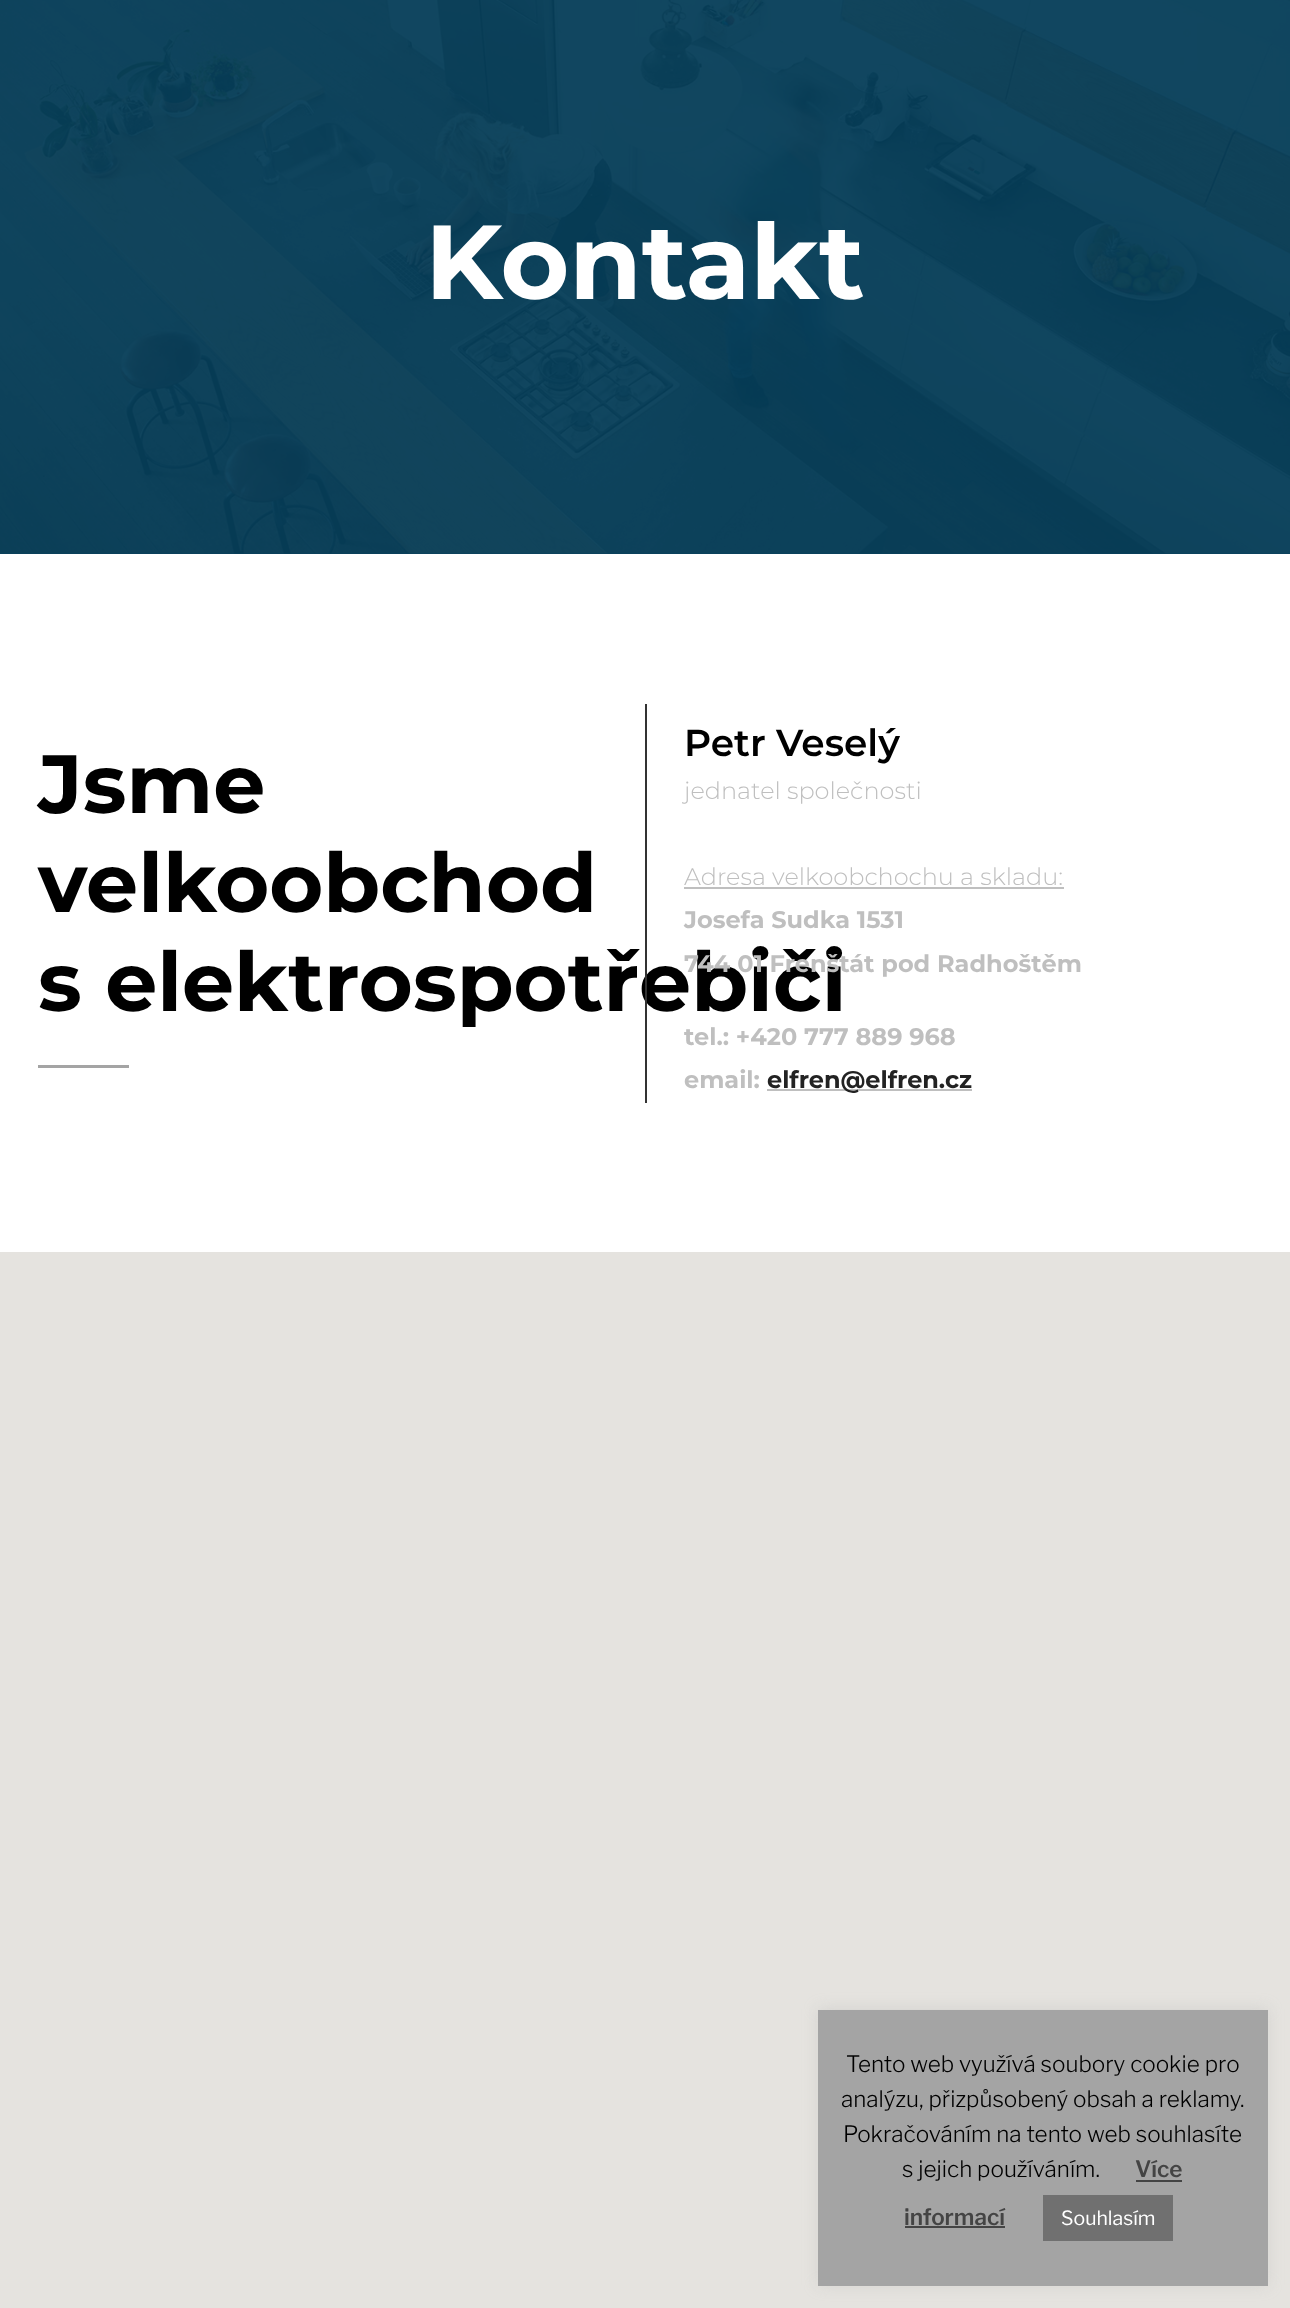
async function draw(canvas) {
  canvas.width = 1290;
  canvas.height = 2308;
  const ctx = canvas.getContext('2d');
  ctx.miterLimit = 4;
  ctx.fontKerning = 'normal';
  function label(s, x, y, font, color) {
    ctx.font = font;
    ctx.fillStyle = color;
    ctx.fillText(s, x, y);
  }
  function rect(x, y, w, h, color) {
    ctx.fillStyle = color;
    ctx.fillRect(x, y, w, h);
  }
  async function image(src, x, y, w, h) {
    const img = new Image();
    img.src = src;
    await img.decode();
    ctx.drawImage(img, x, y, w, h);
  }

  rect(0, 0, 1290, 2308, '#fff');
  rect(0, 553, 1290, 1, '#08405c');
  await image('assets/img1.png', 0, 0, 1290, 554);
  label('Kontakt', 425, 299, 'bold 105px Montserrat', '#fff');
  label('Jsme', 38, 813, 'bold 82.5px Montserrat', '#000');
  label('velkoobchod', 38, 912, 'bold 82.5px Montserrat', '#000');
  label('s elektrospotřebiči', 38, 1011, 'bold 82.5px Montserrat', '#000');
  rect(38, 1065, 91, 3, '#a4a4a4');
  rect(645, 704, 2, 399, '#333');
  label('Petr Veselý', 684, 756, '600 37.5px Montserrat', '#000');
  label('jednatel společnosti', 684, 799, '300 24px Montserrat', '#bfbfbf');
  label('Adresa velkoobchochu a skladu:', 684, 885, '300 24px Montserrat', '#bfbfbf');
  rect(684, 887, 380, 2, '#bfbfbf');
  label('Josefa Sudka 1531', 684, 928, 'bold 24px Montserrat', '#bfbfbf');
  label('744 01 Frenštát pod Radhoštěm', 684, 972, 'bold 24px Montserrat', '#bfbfbf');
  label('tel.: +420 777 889 968', 684, 1045, 'bold 24px Montserrat', '#bfbfbf');
  label('email:', 684, 1088, 'bold 24px Montserrat', '#bfbfbf');
  rect(767, 1089, 205, 2, '#bfbfbf');
  label('elfren@elfren.cz', 767, 1088, 'bold 24px Montserrat', '#222');
  rect(0, 1252, 1290, 1056, '#e5e3df');
  ctx.fillStyle = '#acabab4d';
  ctx.filter = 'blur(7.5px)';
  ctx.beginPath();
  ctx.rect(818, 2009, 450, 276);
  ctx.fill();
  ctx.filter = 'none';
  rect(818, 2010, 450, 276, '#a4a4a4');
  label('Tento web využívá soubory cookie pro', 846, 2072, '100 22.5px Libre Franklin', '#000');
  label('analýzu, přizpůsobený obsah a reklamy.', 841, 2107, '100 22.5px Libre Franklin', '#000');
  label('Pokračováním na tento web souhlasíte', 843, 2142, '100 22.5px Libre Franklin', '#000');
  label('s jejich používáním.', 902, 2177, '100 22.5px Libre Franklin', '#000');
  label('Více', 1135, 2177, '100 22.5px "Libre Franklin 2"', '#444');
  rect(1136, 2180, 46, 2, '#444');
  label('informací', 904, 2225, '100 22.5px "Libre Franklin 2"', '#444');
  rect(905, 2226, 100, 2, '#444');
  rect(1043, 2195, 130, 46, '#707070');
  label('Souhlasím', 1061, 2225, '100 19.5px "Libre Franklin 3"', '#fff');
}

draw(document.querySelector('canvas'));
